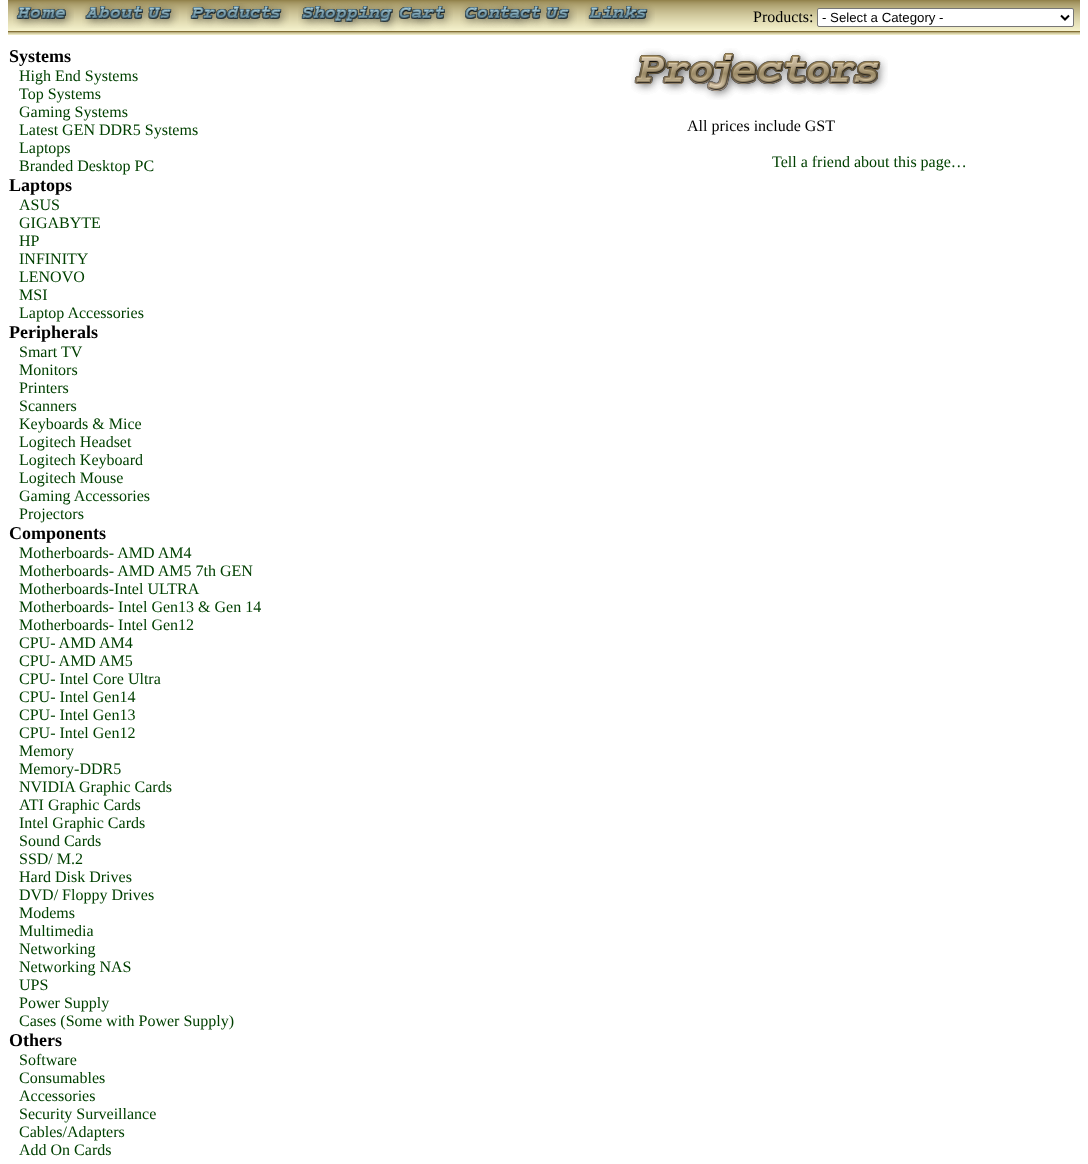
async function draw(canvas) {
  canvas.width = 1088;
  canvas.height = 1164;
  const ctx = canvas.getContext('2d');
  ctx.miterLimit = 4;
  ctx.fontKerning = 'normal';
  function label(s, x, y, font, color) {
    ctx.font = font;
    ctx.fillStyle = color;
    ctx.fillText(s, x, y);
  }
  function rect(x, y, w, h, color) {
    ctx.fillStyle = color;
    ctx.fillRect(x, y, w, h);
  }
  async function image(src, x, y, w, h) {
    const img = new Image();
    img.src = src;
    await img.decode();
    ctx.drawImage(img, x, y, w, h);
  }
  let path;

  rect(0, 0, 1088, 1164, '#fff');
  await image('assets/img1.png', 8, 0, 1072, 35);
  await image('assets/img2.png', 13, 3, 61, 25);
  await image('assets/img3.png', 82, 3, 97, 25);
  await image('assets/img4.png', 187, 3, 102, 25);
  await image('assets/img5.png', 298, 2, 155, 29);
  await image('assets/img6.png', 460, 3, 117, 25);
  await image('assets/img7.png', 585, 3, 70, 25);
  label('Products:', 753, 22, '16px Liberation Serif', '#000');
  ctx.fillStyle = '#fff';
  ctx.beginPath();
  ctx.roundRect(817.5, 8.5, 256, 18, 1.5);
  ctx.fill();
  ctx.strokeStyle = '#767676';
  ctx.stroke();
  path = new Path2D('M1061 15.5L1065 19.5L1069 15.5');
  ctx.strokeStyle = '#000';
  ctx.lineWidth = 2;
  ctx.stroke(path);
  label('- Select a Category -', 822, 22, '13.25px Liberation Sans', '#000');
  label('Systems', 9, 62, 'bold 18px Liberation Serif', '#000');
  label('High End Systems', 19, 81, '16px Liberation Serif', '#004000');
  label('Top Systems', 19, 99, '16px Liberation Serif', '#004000');
  label('Gaming Systems', 19, 117, '16px Liberation Serif', '#004000');
  label('Latest GEN DDR5 Systems', 19, 135, '16px Liberation Serif', '#004000');
  label('Laptops', 19, 153, '16px Liberation Serif', '#004000');
  label('Branded Desktop PC', 19, 171, '16px Liberation Serif', '#004000');
  label('Laptops', 9, 191, 'bold 18px Liberation Serif', '#000');
  label('ASUS', 19, 210, '16px Liberation Serif', '#004000');
  label('GIGABYTE', 19, 228, '16px Liberation Serif', '#004000');
  label('HP', 19, 246, '16px Liberation Serif', '#004000');
  label('INFINITY', 19, 264, '16px Liberation Serif', '#004000');
  label('LENOVO', 19, 282, '16px Liberation Serif', '#004000');
  label('MSI', 19, 300, '16px Liberation Serif', '#004000');
  label('Laptop Accessories', 19, 318, '16px Liberation Serif', '#004000');
  label('Peripherals', 9, 338, 'bold 18px Liberation Serif', '#000');
  label('Smart TV', 19, 357, '16px Liberation Serif', '#004000');
  label('Monitors', 19, 375, '16px Liberation Serif', '#004000');
  label('Printers', 19, 393, '16px Liberation Serif', '#004000');
  label('Scanners', 19, 411, '16px Liberation Serif', '#004000');
  label('Keyboards & Mice', 19, 429, '16px Liberation Serif', '#004000');
  label('Logitech Headset', 19, 447, '16px Liberation Serif', '#004000');
  label('Logitech Keyboard', 19, 465, '16px Liberation Serif', '#004000');
  label('Logitech Mouse', 19, 483, '16px Liberation Serif', '#004000');
  label('Gaming Accessories', 19, 501, '16px Liberation Serif', '#004000');
  label('Projectors', 19, 519, '16px Liberation Serif', '#004000');
  label('Components', 9, 539, 'bold 18px Liberation Serif', '#000');
  label('Motherboards- AMD AM4', 19, 558, '16px Liberation Serif', '#004000');
  label('Motherboards- AMD AM5 7th GEN', 19, 576, '16px Liberation Serif', '#004000');
  label('Motherboards-Intel ULTRA', 19, 594, '16px Liberation Serif', '#004000');
  label('Motherboards- Intel Gen13 & Gen 14', 19, 612, '16px Liberation Serif', '#004000');
  label('Motherboards- Intel Gen12', 19, 630, '16px Liberation Serif', '#004000');
  label('CPU- AMD AM4', 19, 648, '16px Liberation Serif', '#004000');
  label('CPU- AMD AM5', 19, 666, '16px Liberation Serif', '#004000');
  label('CPU- Intel Core Ultra', 19, 684, '16px Liberation Serif', '#004000');
  label('CPU- Intel Gen14', 19, 702, '16px Liberation Serif', '#004000');
  label('CPU- Intel Gen13', 19, 720, '16px Liberation Serif', '#004000');
  label('CPU- Intel Gen12', 19, 738, '16px Liberation Serif', '#004000');
  label('Memory', 19, 756, '16px Liberation Serif', '#004000');
  label('Memory-DDR5', 19, 774, '16px Liberation Serif', '#004000');
  label('NVIDIA Graphic Cards', 19, 792, '16px Liberation Serif', '#004000');
  label('ATI Graphic Cards', 19, 810, '16px Liberation Serif', '#004000');
  label('Intel Graphic Cards', 19, 828, '16px Liberation Serif', '#004000');
  label('Sound Cards', 19, 846, '16px Liberation Serif', '#004000');
  label('SSD/ M.2', 19, 864, '16px Liberation Serif', '#004000');
  label('Hard Disk Drives', 19, 882, '16px Liberation Serif', '#004000');
  label('DVD/ Floppy Drives', 19, 900, '16px Liberation Serif', '#004000');
  label('Modems', 19, 918, '16px Liberation Serif', '#004000');
  label('Multimedia', 19, 936, '16px Liberation Serif', '#004000');
  label('Networking', 19, 954, '16px Liberation Serif', '#004000');
  label('Networking NAS', 19, 972, '16px Liberation Serif', '#004000');
  label('UPS', 19, 990, '16px Liberation Serif', '#004000');
  label('Power Supply', 19, 1008, '16px Liberation Serif', '#004000');
  label('Cases (Some with Power Supply)', 19, 1026, '16px Liberation Serif', '#004000');
  label('Others', 9, 1046, 'bold 18px Liberation Serif', '#000');
  label('Software', 19, 1065, '16px Liberation Serif', '#004000');
  label('Consumables', 19, 1083, '16px Liberation Serif', '#004000');
  label('Accessories', 19, 1101, '16px Liberation Serif', '#004000');
  label('Security Surveillance', 19, 1119, '16px Liberation Serif', '#004000');
  label('Cables/Adapters', 19, 1137, '16px Liberation Serif', '#004000');
  label('Add On Cards', 19, 1155, '16px Liberation Serif', '#004000');
  await image('assets/img8.png', 631, 48, 257, 52);
  label('All prices include GST', 687, 131, '16px Liberation Serif', '#000');
  label('Tell a friend about this page…', 772, 167, '16px Liberation Serif', '#004000');
}

draw(document.querySelector('canvas'));
